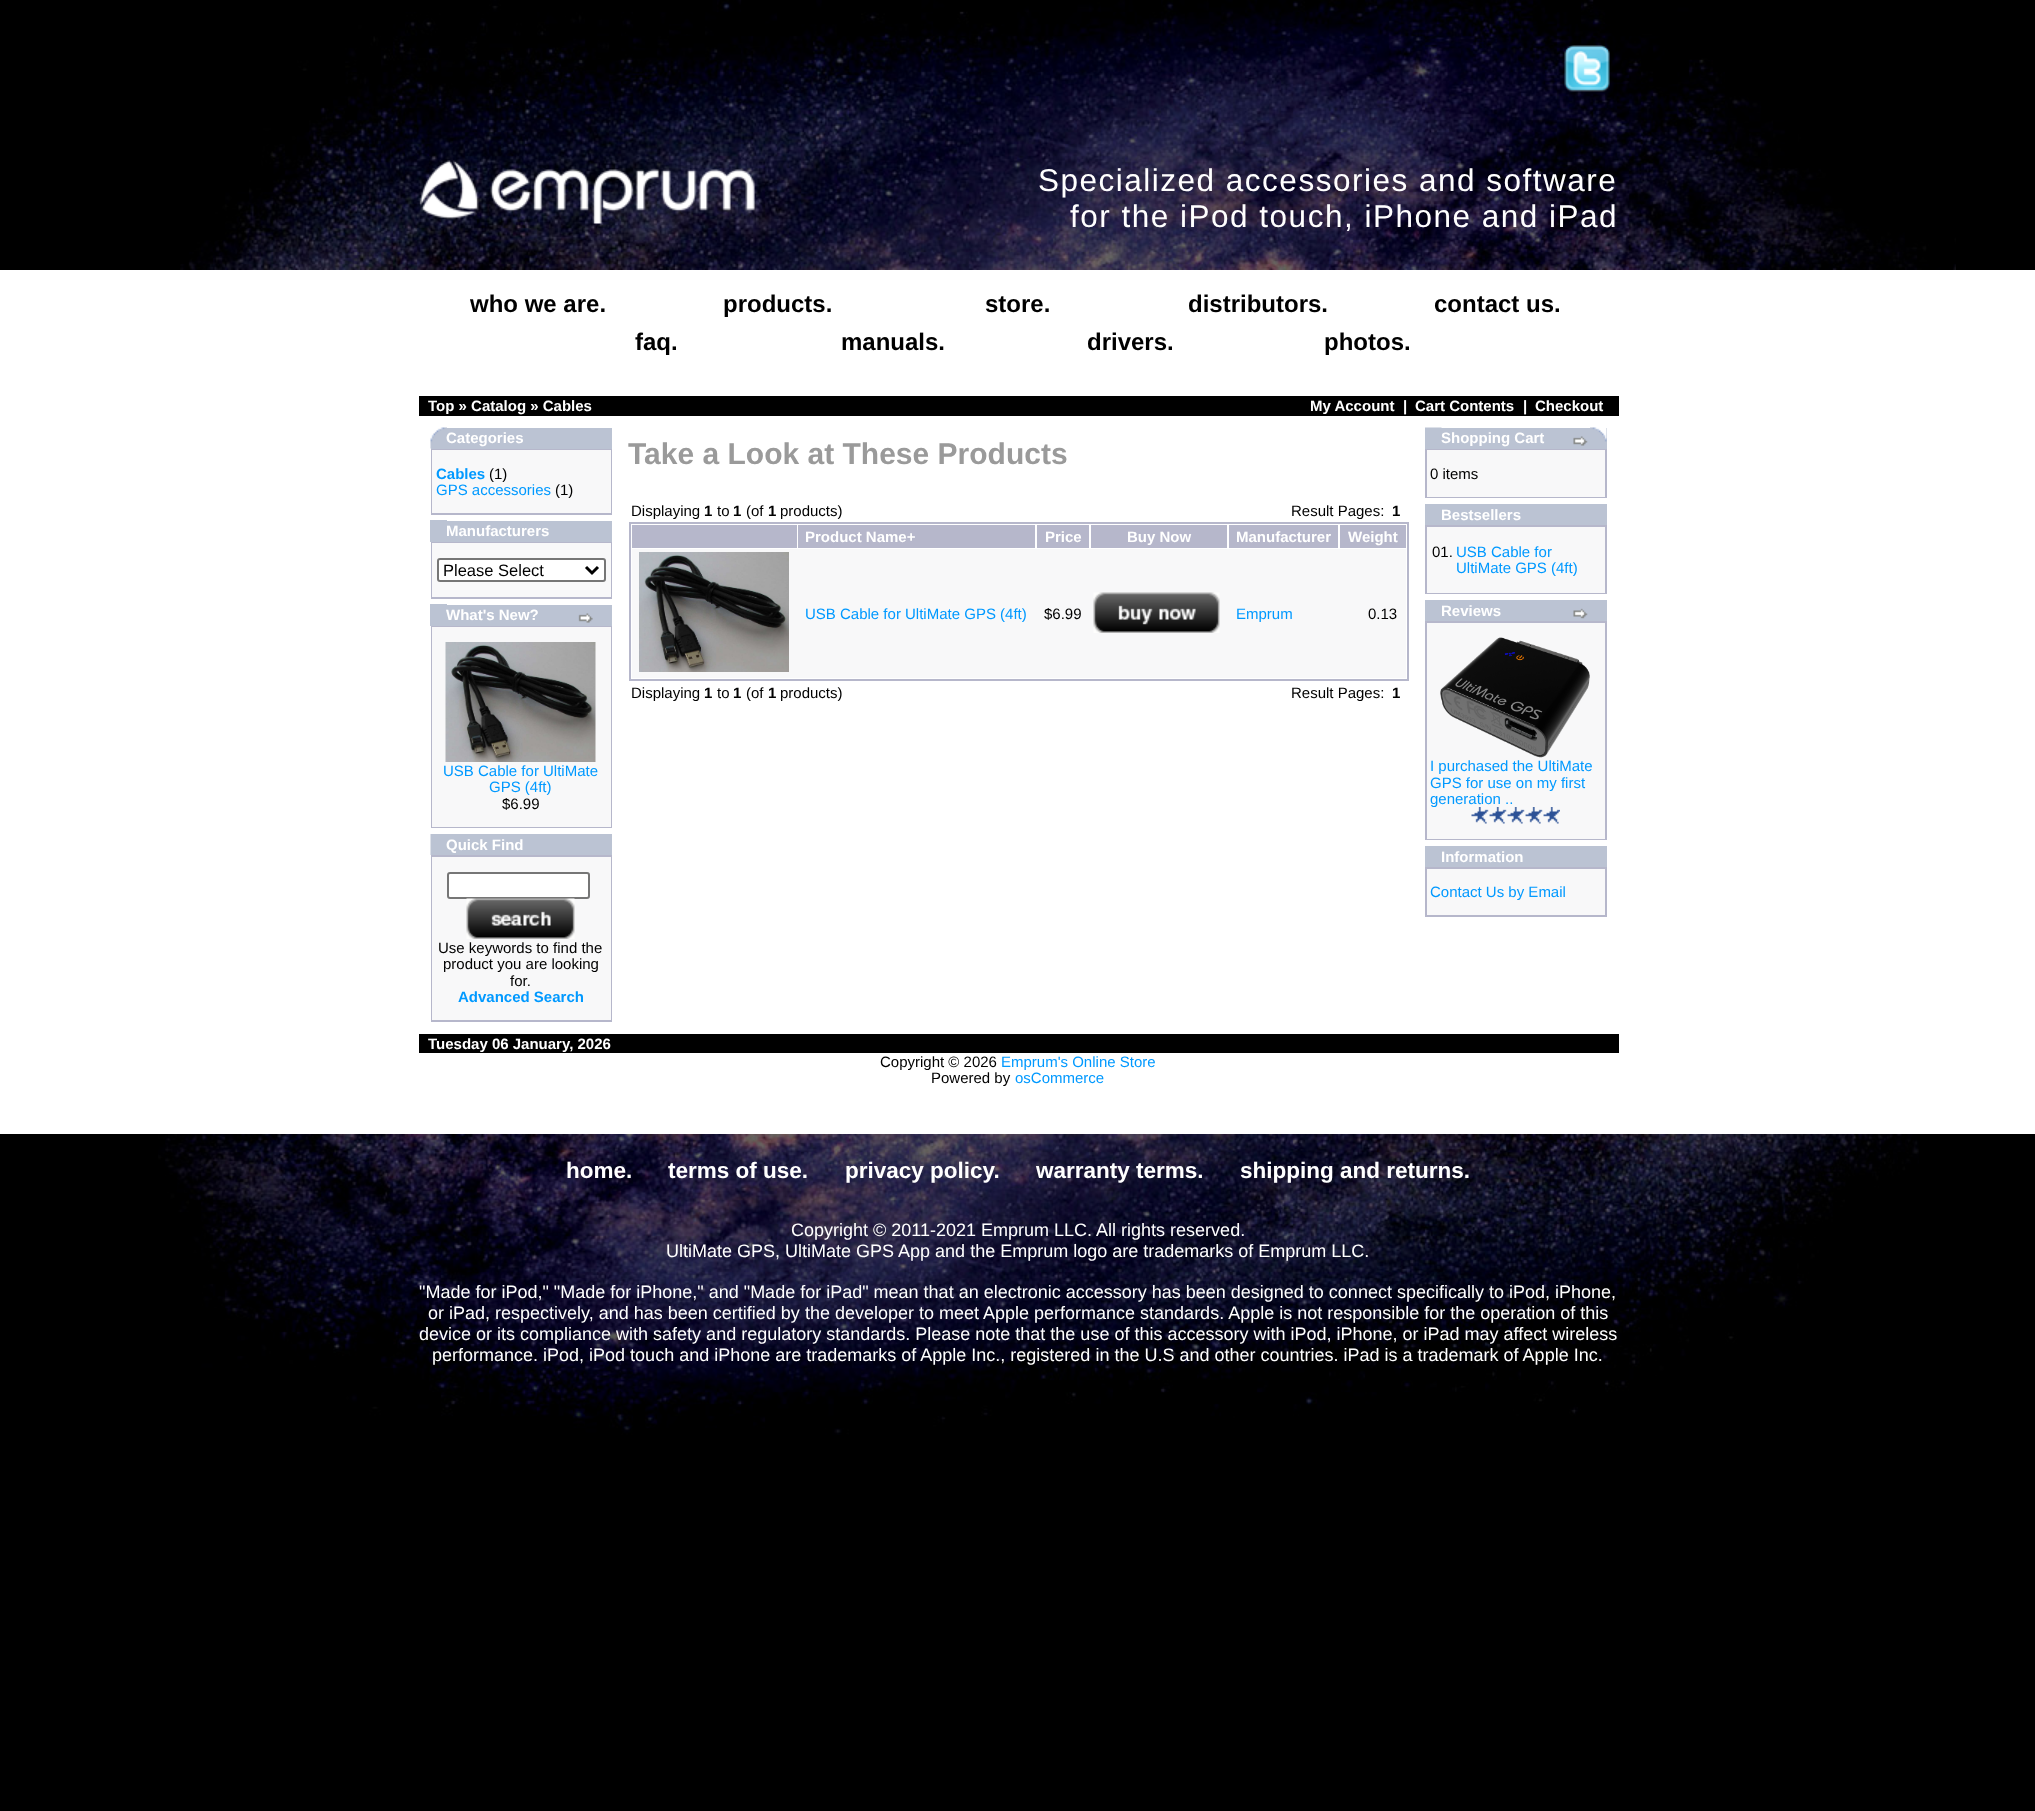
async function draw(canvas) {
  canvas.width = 2035;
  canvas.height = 1811;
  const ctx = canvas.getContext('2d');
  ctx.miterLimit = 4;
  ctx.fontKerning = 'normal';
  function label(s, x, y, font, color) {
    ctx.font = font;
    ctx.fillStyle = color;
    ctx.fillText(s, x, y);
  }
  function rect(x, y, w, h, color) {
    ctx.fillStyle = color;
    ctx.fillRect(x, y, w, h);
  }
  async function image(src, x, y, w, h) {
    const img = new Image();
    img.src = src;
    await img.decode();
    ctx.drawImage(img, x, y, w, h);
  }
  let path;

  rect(0, 0, 2035, 1811, '#000');
  await image('assets/img1.png', 180, 0, 1776, 270);
  await image('assets/img2.png', 1564, 45, 46, 47);
  await image('assets/img3.png', 419, 160, 336, 64);
  ctx.letterSpacing = '1.5px';
  label('Specialized accessories and software', 1038, 191, '31.5px Liberation Sans', '#fff');
  label('for the iPod touch, iPhone and iPad', 1070, 227, '31.5px Liberation Sans', '#fff');
  rect(0, 270, 2035, 864, '#fff');
  ctx.letterSpacing = '0px';
  label('who we are.', 470, 312, 'bold 24px Liberation Sans', '#000');
  label('products.', 723, 312, 'bold 24px Liberation Sans', '#000');
  label('store.', 985, 312, 'bold 24px Liberation Sans', '#000');
  label('distributors.', 1188, 312, 'bold 24px Liberation Sans', '#000');
  label('contact us.', 1434, 312, 'bold 24px Liberation Sans', '#000');
  label('faq.', 635, 350, 'bold 24px Liberation Sans', '#000');
  label('manuals.', 841, 350, 'bold 24px Liberation Sans', '#000');
  label('drivers.', 1087, 350, 'bold 24px Liberation Sans', '#000');
  label('photos.', 1324, 350, 'bold 24px Liberation Sans', '#000');
  rect(419, 396, 1200, 20, '#000');
  label('Top » Catalog » Cables', 428, 411, 'bold 15px Liberation Sans', '#fff');
  label('My Account', 1310, 411, 'bold 15px Liberation Sans', '#fff');
  label('|', 1403, 411, 'bold 15px Liberation Sans', '#fff');
  label('Cart Contents', 1415, 411, 'bold 15px Liberation Sans', '#fff');
  label('|', 1523, 411, 'bold 15px Liberation Sans', '#fff');
  label('Checkout', 1535, 411, 'bold 15px Liberation Sans', '#fff');
  rect(431, 448, 16, 1, '#bbc3d3');
  await image('assets/img4.png', 430, 427, 17, 22);
  rect(447, 428, 165, 21, '#bbc3d3');
  label('Categories', 446, 443, 'bold 15px Liberation Sans', '#fff');
  rect(431, 449, 181, 66, '#b6b7cb');
  rect(432, 450, 179, 63, '#f8f8f9');
  label('Cables', 436, 479, 'bold 15px Liberation Sans', '#09f');
  label('(1)', 489, 479, '15px Liberation Sans', '#000');
  label('GPS accessories', 436, 495, '15px Liberation Sans', '#09f');
  label('(1)', 555, 495, '15px Liberation Sans', '#000');
  rect(430, 520, 17, 22, '#bbc3d3');
  rect(447, 521, 165, 21, '#bbc3d3');
  label('Manufacturers', 446, 536, 'bold 15px Liberation Sans', '#fff');
  rect(431, 542, 181, 57, '#b6b7cb');
  rect(432, 543, 179, 54, '#f8f8f9');
  ctx.fillStyle = '#fff';
  ctx.beginPath();
  ctx.roundRect(438, 559, 167, 22, 2);
  ctx.fill();
  ctx.strokeStyle = '#767676';
  ctx.lineWidth = 2;
  ctx.stroke();
  path = new Path2D('M586 567L592 573L598 567');
  ctx.strokeStyle = '#000';
  ctx.lineWidth = 3;
  ctx.stroke(path);
  label('Please Select', 443, 576, '16.5px Liberation Sans', '#000');
  rect(430, 604, 17, 22, '#bbc3d3');
  rect(447, 605, 165, 21, '#bbc3d3');
  label('What\'s New?', 446, 620, 'bold 15px Liberation Sans', '#fff');
  await image('assets/img5.png', 578, 613, 15, 10);
  rect(431, 626, 181, 202, '#b6b7cb');
  rect(432, 627, 179, 200, '#f8f8f9');
  await image('assets/img6.png', 445, 642, 151, 120);
  label('USB Cable for UltiMate', 443, 776, '15px Liberation Sans', '#09f');
  label('GPS (4ft)', 489, 792, '15px Liberation Sans', '#09f');
  label('$6.99', 502, 809, '15px Liberation Sans', '#000');
  rect(431, 834, 181, 21, '#bbc3d3');
  rect(430, 834, 1, 21, '#dde1e9');
  label('Quick Find', 446, 850, 'bold 15px Liberation Sans', '#fff');
  rect(431, 855, 181, 167, '#b6b7cb');
  rect(432, 857, 179, 163, '#f8f8f9');
  ctx.fillStyle = '#fff';
  ctx.beginPath();
  ctx.roundRect(448, 873, 141, 25, 2);
  ctx.fill();
  ctx.strokeStyle = '#767676';
  ctx.lineWidth = 2;
  ctx.stroke();
  await image('assets/img7.png', 466, 898, 109, 41);
  label('Use keywords to find the', 438, 953, '15px Liberation Sans', '#000');
  label('product you are looking', 443, 969, '15px Liberation Sans', '#000');
  label('for.', 510, 986, '15px Liberation Sans', '#000');
  label('Advanced Search', 458, 1002, 'bold 15px Liberation Sans', '#09f');
  label('Take a Look at These Products', 628, 464, 'bold 30px Liberation Sans', '#9a9a9a');
  label('Displaying', 631, 516, '15px Liberation Sans', '#000');
  label('1', 704, 516, 'bold 15px Liberation Sans', '#000');
  label('to', 717, 516, '15px Liberation Sans', '#000');
  label('1', 733, 516, 'bold 15px Liberation Sans', '#000');
  label('(of', 746, 516, '15px Liberation Sans', '#000');
  label('1', 768, 516, 'bold 15px Liberation Sans', '#000');
  label('products)', 780, 516, '15px Liberation Sans', '#000');
  label('Result Pages:', 1291, 516, '15px Liberation Sans', '#000');
  label('1', 1392, 516, 'bold 15px Liberation Sans', '#000');
  ctx.strokeStyle = '#b6b7cb';
  ctx.strokeRect(630, 523, 778, 157);
  rect(632, 525, 165, 23, '#b6b7cb');
  rect(798, 525, 237, 23, '#b6b7cb');
  label('Product Name+', 805, 542, 'bold 15px Liberation Sans', '#fff');
  rect(1037, 525, 52, 23, '#b6b7cb');
  label('Price', 1045, 542, 'bold 15px Liberation Sans', '#fff');
  rect(1091, 525, 136, 23, '#b6b7cb');
  label('Buy Now', 1127, 542, 'bold 15px Liberation Sans', '#fff');
  rect(1229, 525, 109, 23, '#b6b7cb');
  label('Manufacturer', 1236, 542, 'bold 15px Liberation Sans', '#fff');
  rect(1340, 525, 66, 23, '#b6b7cb');
  label('Weight', 1348, 542, 'bold 15px Liberation Sans', '#fff');
  rect(632, 549, 774, 129, '#f8f8f9');
  await image('assets/img8.png', 639, 552, 150, 120);
  label('USB Cable for UltiMate GPS (4ft)', 805, 619, '15px Liberation Sans', '#09f');
  label('$6.99', 1044, 619, '15px Liberation Sans', '#000');
  await image('assets/img9.png', 1093, 592, 127, 41);
  label('Emprum', 1236, 619, '15px Liberation Sans', '#09f');
  label('0.13', 1368, 619, '15px Liberation Sans', '#000');
  label('Displaying', 631, 698, '15px Liberation Sans', '#000');
  label('1', 704, 698, 'bold 15px Liberation Sans', '#000');
  label('to', 717, 698, '15px Liberation Sans', '#000');
  label('1', 733, 698, 'bold 15px Liberation Sans', '#000');
  label('(of', 746, 698, '15px Liberation Sans', '#000');
  label('1', 768, 698, 'bold 15px Liberation Sans', '#000');
  label('products)', 780, 698, '15px Liberation Sans', '#000');
  label('Result Pages:', 1291, 698, '15px Liberation Sans', '#000');
  label('1', 1392, 698, 'bold 15px Liberation Sans', '#000');
  rect(1425, 428, 182, 21, '#bbc3d3');
  await image('assets/img10.png', 1425, 427, 17, 1);
  label('Shopping Cart', 1441, 443, 'bold 15px Liberation Sans', '#fff');
  await image('assets/img11.png', 1573, 436, 15, 10);
  await image('assets/img12.png', 1590, 427, 17, 15);
  rect(1425, 449, 182, 49, '#b6b7cb');
  rect(1427, 450, 178, 47, '#f8f8f9');
  label('0 items', 1430, 479, '15px Liberation Sans', '#000');
  rect(1425, 504, 182, 21, '#bbc3d3');
  label('Bestsellers', 1441, 520, 'bold 15px Liberation Sans', '#fff');
  rect(1425, 525, 182, 69, '#b6b7cb');
  rect(1427, 527, 178, 66, '#f8f8f9');
  label('01.', 1432, 557, '15px Liberation Sans', '#000');
  label('USB Cable for', 1456, 557, '15px Liberation Sans', '#09f');
  label('UltiMate GPS (4ft)', 1456, 573, '15px Liberation Sans', '#09f');
  rect(1425, 600, 182, 21, '#bbc3d3');
  label('Reviews', 1441, 616, 'bold 15px Liberation Sans', '#fff');
  await image('assets/img13.png', 1573, 608, 15, 11);
  rect(1425, 621, 182, 219, '#b6b7cb');
  rect(1427, 623, 178, 216, '#f8f8f9');
  await image('assets/img14.png', 1440, 637, 150, 121);
  label('I purchased the UltiMate', 1430, 771, '15px Liberation Sans', '#09f');
  label('GPS for use on my first', 1430, 788, '15px Liberation Sans', '#09f');
  label('generation ..', 1430, 804, '15px Liberation Sans', '#09f');
  await image('assets/img15.png', 1471, 807, 89, 17);
  rect(1425, 846, 182, 21, '#bbc3d3');
  label('Information', 1441, 862, 'bold 15px Liberation Sans', '#fff');
  rect(1425, 867, 182, 50, '#b6b7cb');
  rect(1427, 869, 178, 46, '#f8f8f9');
  label('Contact Us by Email', 1430, 897, '15px Liberation Sans', '#09f');
  rect(419, 1034, 1200, 19, '#000');
  label('Tuesday 06 January, 2026', 428, 1049, 'bold 15px Liberation Sans', '#fff');
  label('Copyright © 2026', 880, 1067, '15px Liberation Sans', '#000');
  label('Emprum\'s Online Store', 1001, 1067, '15px Liberation Sans', '#09f');
  label('Powered by', 931, 1083, '15px Liberation Sans', '#000');
  label('osCommerce', 1015, 1083, '15px Liberation Sans', '#09f');
  await image('assets/img16.png', 158, 1134, 1761, 301);
  label('home.', 566, 1178, 'bold 22.5px Liberation Sans', '#fff');
  label('terms of use.', 668, 1178, 'bold 22.5px Liberation Sans', '#fff');
  label('privacy policy.', 845, 1178, 'bold 22.5px Liberation Sans', '#fff');
  label('warranty terms.', 1036, 1178, 'bold 22.5px Liberation Sans', '#fff');
  label('shipping and returns.', 1240, 1178, 'bold 22.5px Liberation Sans', '#fff');
  label('Copyright © 2011-2021 Emprum LLC. All rights reserved.', 791, 1236, '18px Liberation Sans', '#fff');
  label('UltiMate GPS, UltiMate GPS App and the Emprum logo are trademarks of Emprum LLC.', 666, 1257, '18px Liberation Sans', '#fff');
  label('"Made for iPod," "Made for iPhone," and "Made for iPad" mean that an electronic accessory has been designed to connect specifically to iPod, iPhone,', 419, 1298, '18px Liberation Sans', '#fff');
  label('or iPad, respectively, and has been certified by the developer to meet Apple performance standards. Apple is not responsible for the operation of this', 428, 1319, '18px Liberation Sans', '#fff');
  label('device or its compliance with safety and regulatory standards. Please note that the use of this accessory with iPod, iPhone, or iPad may affect wireless', 419, 1340, '18px Liberation Sans', '#fff');
  label('performance. iPod, iPod touch and iPhone are trademarks of Apple Inc., registered in the U.S and other countries. iPad is a trademark of Apple Inc.', 432, 1361, '18px Liberation Sans', '#fff');
}

draw(document.querySelector('canvas'));
